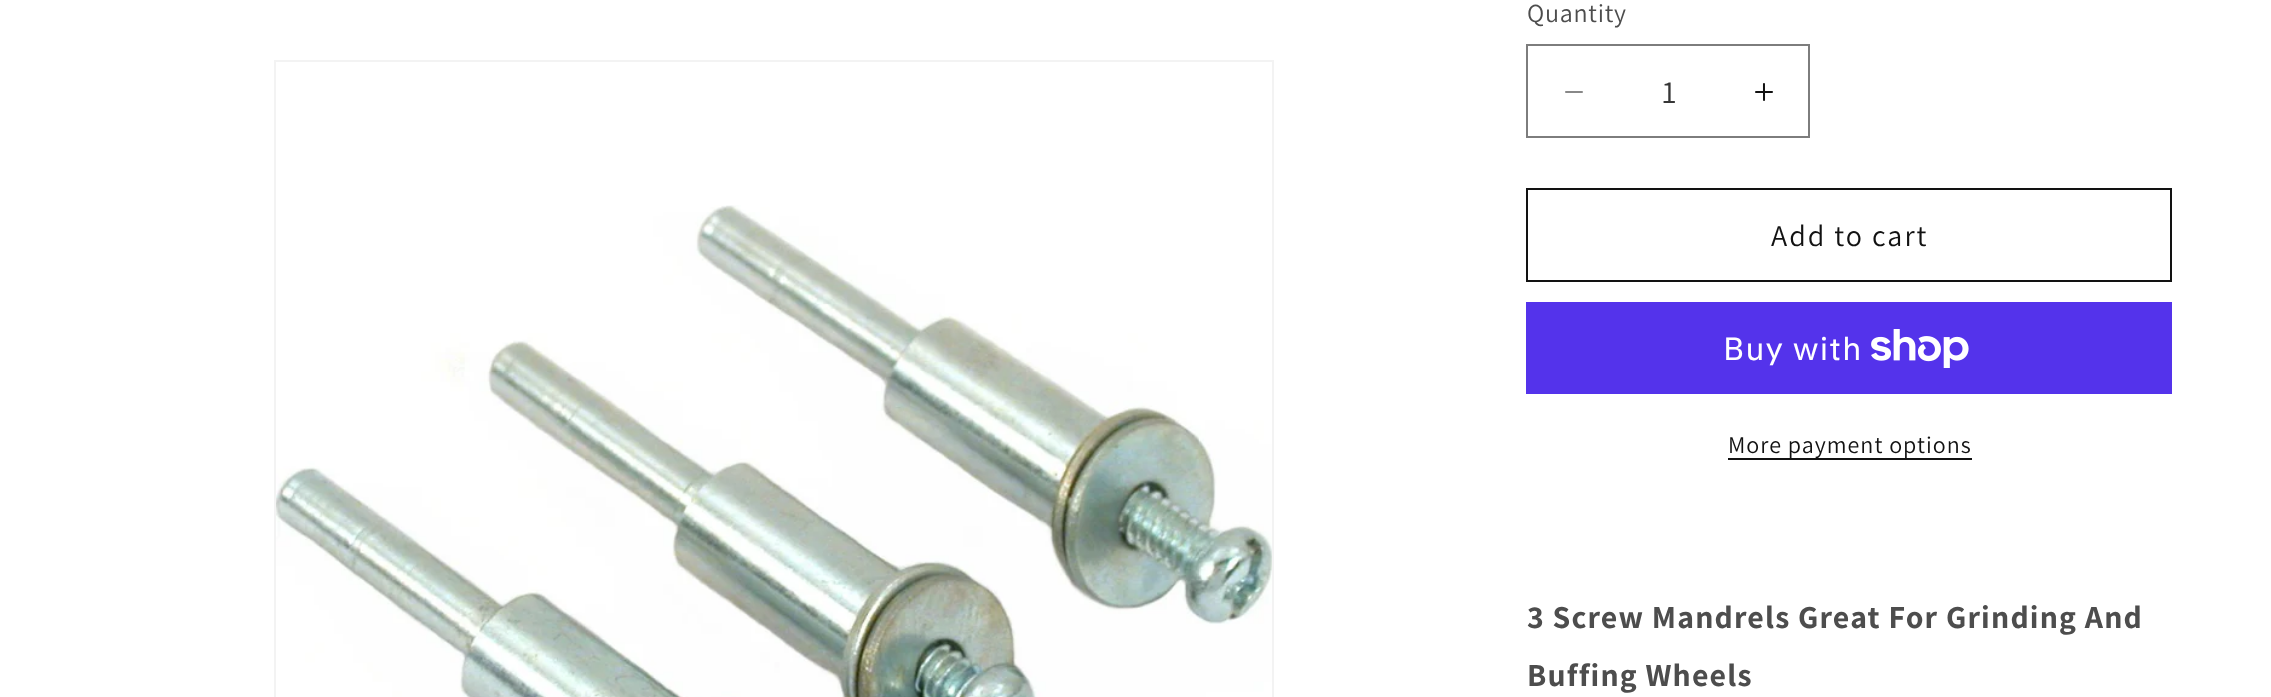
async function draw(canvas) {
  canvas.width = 2271;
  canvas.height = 697;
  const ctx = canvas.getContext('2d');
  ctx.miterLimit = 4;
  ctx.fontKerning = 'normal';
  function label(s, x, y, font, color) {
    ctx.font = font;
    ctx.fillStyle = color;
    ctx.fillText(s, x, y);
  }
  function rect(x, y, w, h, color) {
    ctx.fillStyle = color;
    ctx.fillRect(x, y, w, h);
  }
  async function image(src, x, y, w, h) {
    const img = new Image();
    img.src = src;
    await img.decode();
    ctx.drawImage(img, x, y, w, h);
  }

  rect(0, 0, 2271, 697, '#fff');
  ctx.strokeStyle = '#f3f3f3';
  ctx.lineWidth = 2;
  ctx.strokeRect(275, 61, 998, 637);
  await image('assets/img1.png', 276, 205, 996, 492);
  ctx.letterSpacing = '0.75px';
  label('Quantity', 1527, 22, '26px Assistant', '#4d4d4d');
  await image('assets/img2.png', 1565, 91, 18, 2);
  await image('assets/img3.png', 1755, 83, 18, 18);
  ctx.strokeStyle = '#7d7d7d';
  ctx.strokeRect(1527, 45, 282, 92);
  ctx.letterSpacing = '0px';
  label('1', 1662, 103, '32px Assistant', '#363636');
  ctx.strokeStyle = '#121212';
  ctx.strokeRect(1527, 189, 644, 92);
  ctx.letterSpacing = '2px';
  label('Add to cart', 1771, 246, '30px Assistant', '#121212');
  rect(1526, 302, 646, 92, '#5433eb');
  ctx.letterSpacing = '1.2px';
  label('Buy with', 1723, 360, '32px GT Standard', '#fff');
  await image('assets/img4.png', 1871, 329, 98, 39);
  rect(1728, 458, 244, 2, '#121212');
  ctx.letterSpacing = '1px';
  label('More payment options', 1728, 453, '24px Assistant', '#121212');
  ctx.letterSpacing = '1.2px';
  label('3 Screw Mandrels Great For Grinding And', 1527, 628, 'bold 32px Assistant', '#4d4d4d');
  label('Buffing Wheels', 1527, 686, 'bold 32px Assistant', '#4d4d4d');
}

draw(document.querySelector('canvas'));
